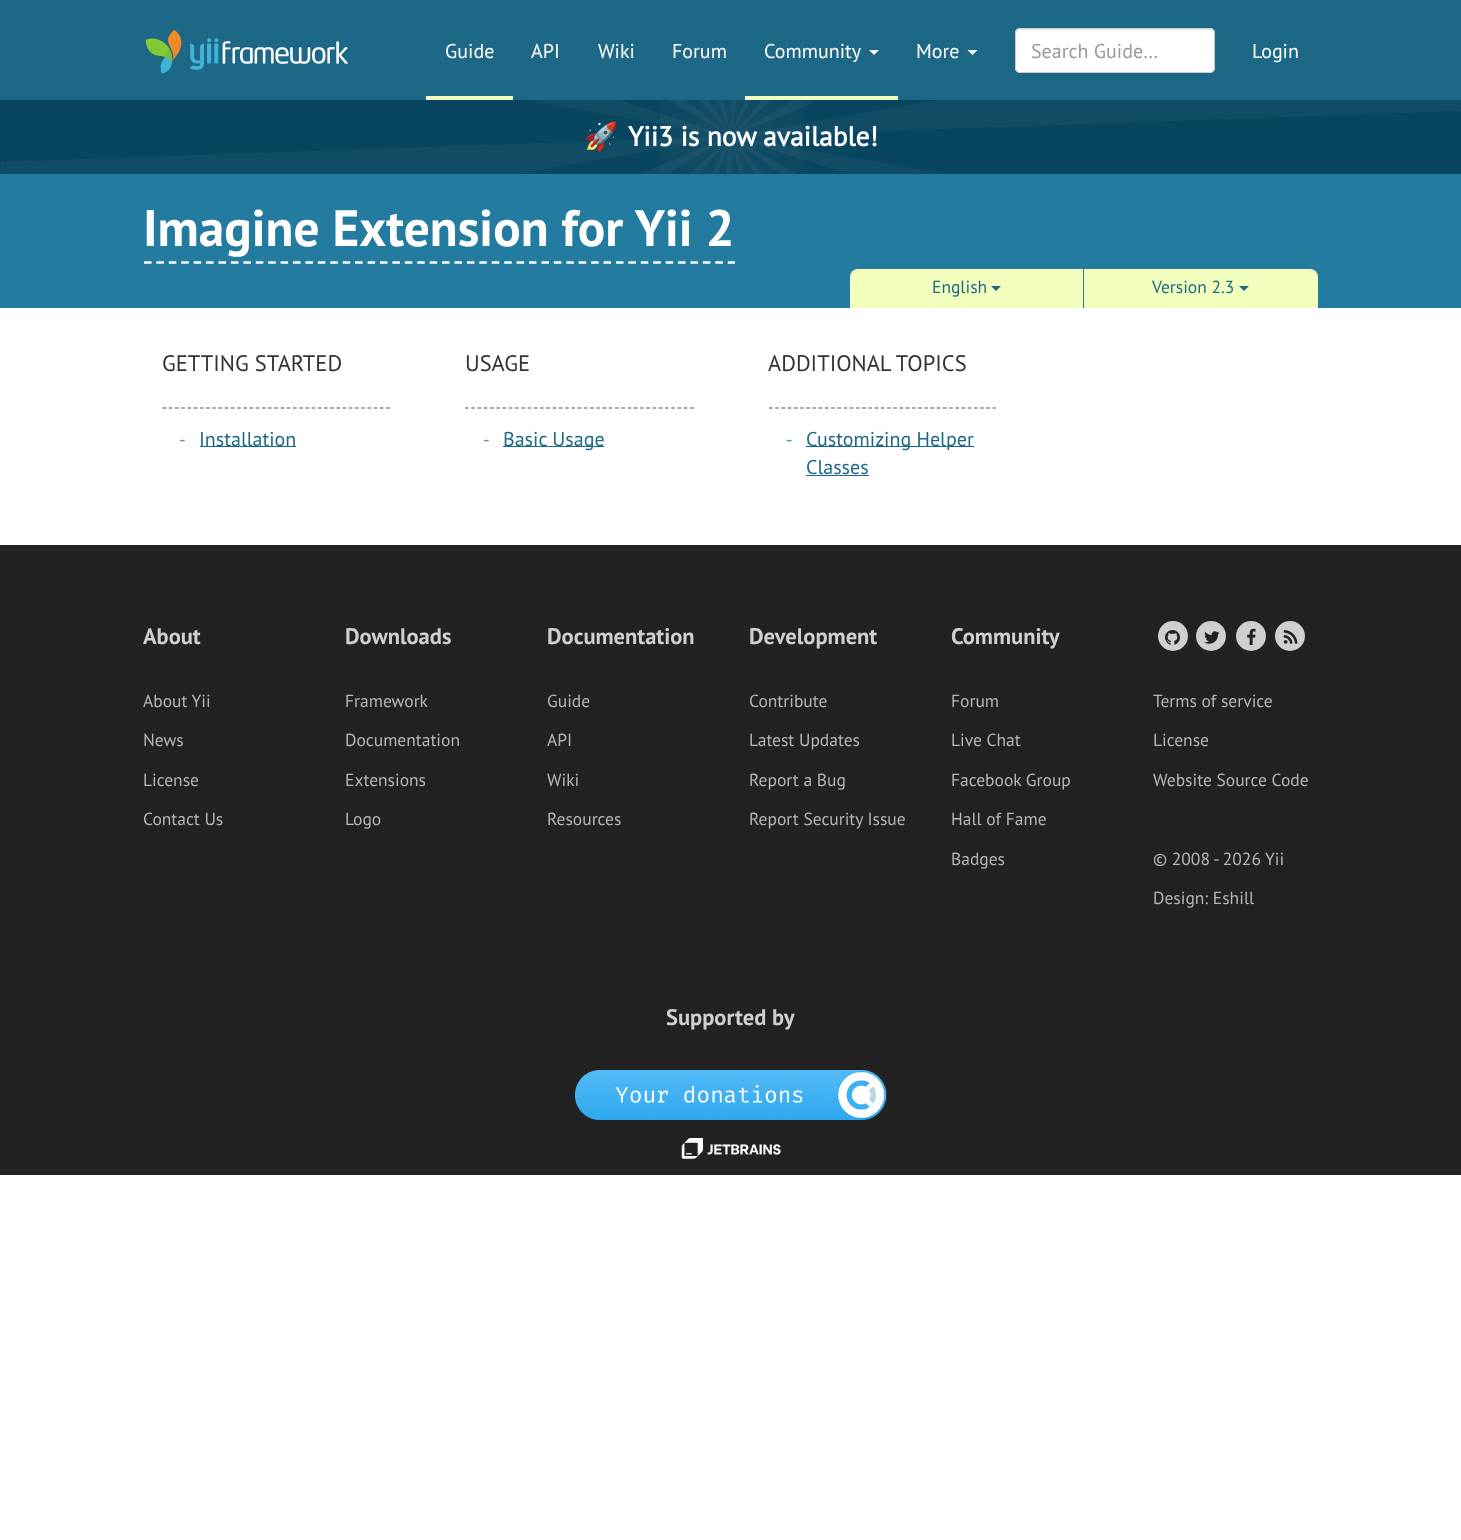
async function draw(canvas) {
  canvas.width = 1461;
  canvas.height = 1540;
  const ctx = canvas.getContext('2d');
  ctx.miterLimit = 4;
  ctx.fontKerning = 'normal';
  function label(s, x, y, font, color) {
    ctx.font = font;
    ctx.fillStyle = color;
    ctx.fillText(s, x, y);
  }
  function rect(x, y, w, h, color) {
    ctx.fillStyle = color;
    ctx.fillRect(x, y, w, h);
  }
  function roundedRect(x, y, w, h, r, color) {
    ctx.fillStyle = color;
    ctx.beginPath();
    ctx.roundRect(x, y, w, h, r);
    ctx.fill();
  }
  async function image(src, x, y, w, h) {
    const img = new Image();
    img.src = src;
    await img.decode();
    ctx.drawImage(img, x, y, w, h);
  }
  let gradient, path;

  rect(0, 0, 1461, 1540, '#fff');
  rect(0, 0, 1461, 100, '#1e6887');
  await image('assets/img1.png', 145, 30, 203, 44);
  rect(426, 96, 87, 4, '#f3ffbd');
  label('Guide', 445, 58, '20px PT Sans', '#fff');
  label('API', 531, 58, '20px PT Sans', '#fff');
  label('Wiki', 598, 58, '20px PT Sans', '#fff');
  label('Forum', 672, 58, '20px PT Sans', '#fff');
  rect(745, 96, 153, 4, '#f3ffbd');
  label('Community', 764, 58, '20px PT Sans', '#fff');
  path = new Path2D('M869 50H879L874 55Z');
  ctx.fill(path);
  label('More', 916, 58, '20px PT Sans', '#fff');
  path = new Path2D('M967.5 50H977.5L972.5 55Z');
  ctx.fill(path);
  roundedRect(1015, 28, 200, 45, 5, '#fff');
  ctx.fillStyle = '#ececec';
  path = new Path2D('M1020 30H1210C1212 30 1214 32 1214 34V33C1214 31 1212 29 1210 29H1020C1018 29 1016 31 1016 33V34C1016 32 1018 30 1020 30Z');
  ctx.fill(path);
  ctx.beginPath();
  ctx.roundRect(1015.5, 28.5, 199, 44, 4.5);
  ctx.strokeStyle = '#ccc';
  ctx.stroke();
  label('Search Guide…', 1031, 58, '20px PT Sans', '#999');
  label('Login', 1252, 58, '20px PT Sans', '#fff');
  rect(0, 100, 1461, 74, '#08455f');
  await image('assets/img2.png', 1, 100, 1460, 74);
  label('🚀', 584, 146, 'bold 27.5px Noto Color Emoji', '#fff');
  gradient = ctx.createRadialGradient(731, 136, 0, 731, 136, 177);
  gradient.addColorStop(0, '#ffffff0d');
  gradient.addColorStop(0.7, '#ffffff00');
  ctx.fillStyle = gradient;
  ctx.fillRect(660, 100, 142, 74);
  label('Yii3 is now available!', 628, 146, 'bold 27.5px "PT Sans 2"', '#fff');
  rect(0, 174, 1461, 134, '#247ba0');
  label('Imagine Extension for Yii 2', 143, 246, 'bold 51.25px PT Sans', '#fff');
  path = new Path2D('M144 262.5H735');
  ctx.strokeStyle = '#fff';
  ctx.lineWidth = 2.5;
  ctx.setLineDash([7.5, 4.92]);
  ctx.stroke(path);
  ctx.fillStyle = '#f3ffbd';
  ctx.beginPath();
  ctx.roundRect(850, 269, 233, 39, [8, 0, 0, 0]);
  ctx.fill();
  label('English', 932, 293, '17.5px PT Sans', '#1e6887');
  path = new Path2D('M991 286H1001L996 291Z');
  ctx.fill(path);
  ctx.fillStyle = '#f3ffbd';
  ctx.beginPath();
  ctx.roundRect(1084, 269, 234, 39, [0, 8, 0, 0]);
  ctx.fill();
  label('Version 2.3', 1152, 293, '17.5px PT Sans', '#1e6887');
  path = new Path2D('M1239 286H1249L1244 291Z');
  ctx.fill(path);
  label('GETTING STARTED', 162, 371, '22.5px PT Sans', '#333');
  path = new Path2D('M162.5 408H390');
  ctx.strokeStyle = '#555';
  ctx.lineWidth = 1.2;
  ctx.setLineDash([3.75, 2.46]);
  ctx.stroke(path);
  label('⁃', 179, 446, '20px Noto Sans', '#44b3a0');
  rect(200, 446, 96, 1, '#1e6887');
  label('Installation', 199, 446, '20px PT Sans', '#1e6887');
  label('USAGE', 465, 371, '22.5px PT Sans', '#333');
  path = new Path2D('M465 408H694');
  ctx.setLineDash([3.75, 2.5]);
  ctx.stroke(path);
  label('⁃', 483, 446, '20px Noto Sans', '#44b3a0');
  rect(503, 446, 101, 1, '#1e6887');
  label('Basic Usage', 503, 446, '20px PT Sans', '#1e6887');
  label('ADDITIONAL TOPICS', 768, 371, '22.5px PT Sans', '#333');
  path = new Path2D('M769 408H996');
  ctx.setLineDash([3.75, 2.46]);
  ctx.stroke(path);
  label('⁃', 786, 446, '20px Noto Sans', '#44b3a0');
  rect(806, 446, 168, 1, '#1e6887');
  label('Customizing Helper', 806, 446, '20px PT Sans', '#1e6887');
  label('Classes', 806, 474, '20px PT Sans', '#1e6887');
  rect(806, 475, 63, 1, '#1e6887');
  rect(0, 545, 1461, 630, '#222');
  label('About', 143, 644, 'bold 22.5px PT Sans', '#cfcfcf');
  label('About Yii', 143, 707, '17.5px PT Sans', '#b6b6b6');
  label('News', 143, 746, '17.5px PT Sans', '#b6b6b6');
  label('License', 143, 786, '17.5px PT Sans', '#b6b6b6');
  label('Contact Us', 143, 825, '17.5px PT Sans', '#b6b6b6');
  label('Downloads', 345, 644, 'bold 22.5px PT Sans', '#cfcfcf');
  label('Framework', 345, 707, '17.5px PT Sans', '#b6b6b6');
  label('Documentation', 345, 746, '17.5px PT Sans', '#b6b6b6');
  label('Extensions', 345, 786, '17.5px PT Sans', '#b6b6b6');
  label('Logo', 345, 825, '17.5px PT Sans', '#b6b6b6');
  label('Documentation', 547, 644, 'bold 22.5px PT Sans', '#cfcfcf');
  label('Guide', 547, 707, '17.5px PT Sans', '#b6b6b6');
  label('API', 547, 746, '17.5px PT Sans', '#b6b6b6');
  label('Wiki', 547, 786, '17.5px PT Sans', '#b6b6b6');
  label('Resources', 547, 825, '17.5px PT Sans', '#b6b6b6');
  label('Development', 749, 644, 'bold 22.5px PT Sans', '#cfcfcf');
  label('Contribute', 749, 707, '17.5px PT Sans', '#b6b6b6');
  label('Latest Updates', 749, 746, '17.5px PT Sans', '#b6b6b6');
  label('Report a Bug', 749, 786, '17.5px PT Sans', '#b6b6b6');
  label('Report Security Issue', 749, 825, '17.5px PT Sans', '#b6b6b6');
  label('Community', 951, 644, 'bold 22.5px PT Sans', '#cfcfcf');
  label('Forum', 951, 707, '17.5px PT Sans', '#b6b6b6');
  label('Live Chat', 951, 746, '17.5px PT Sans', '#b6b6b6');
  label('Facebook Group', 951, 786, '17.5px PT Sans', '#b6b6b6');
  label('Hall of Fame', 951, 825, '17.5px PT Sans', '#b6b6b6');
  label('Badges', 951, 865, '17.5px PT Sans', '#b6b6b6');
  ctx.fillStyle = '#cfcfcf';
  ctx.beginPath();
  ctx.arc(1173, 636, 15, 0, 2 * Math.PI);
  ctx.fill();
  await image('assets/img3.png', 1165, 630, 15, 15);
  ctx.beginPath();
  ctx.arc(1211, 636, 15, 0, 2 * Math.PI);
  ctx.fill();
  await image('assets/img4.png', 1204, 631, 16, 13);
  ctx.beginPath();
  ctx.arc(1251, 636, 15, 0, 2 * Math.PI);
  ctx.fill();
  await image('assets/img5.png', 1247, 628, 9, 17);
  ctx.beginPath();
  ctx.arc(1290, 636, 15, 0, 2 * Math.PI);
  ctx.fill();
  await image('assets/img6.png', 1283, 630, 15, 14);
  label('Terms of service', 1153, 707, '17.5px PT Sans', '#b6b6b6');
  label('License', 1153, 746, '17.5px PT Sans', '#b6b6b6');
  label('Website Source Code', 1153, 786, '17.5px PT Sans', '#b6b6b6');
  label('© 2008 - 2026 Yii', 1153, 865, '17.5px PT Sans', '#b6b6b6');
  label('Design: Eshill', 1153, 904, '17.5px PT Sans', '#b6b6b6');
  label('Supported by', 666, 1025, 'bold 22.5px PT Sans', '#cfcfcf');
  await image('assets/img7.png', 575, 1070, 312, 50);
  await image('assets/img8.png', 681, 1138, 100, 21);
}

draw(document.querySelector('canvas'));
